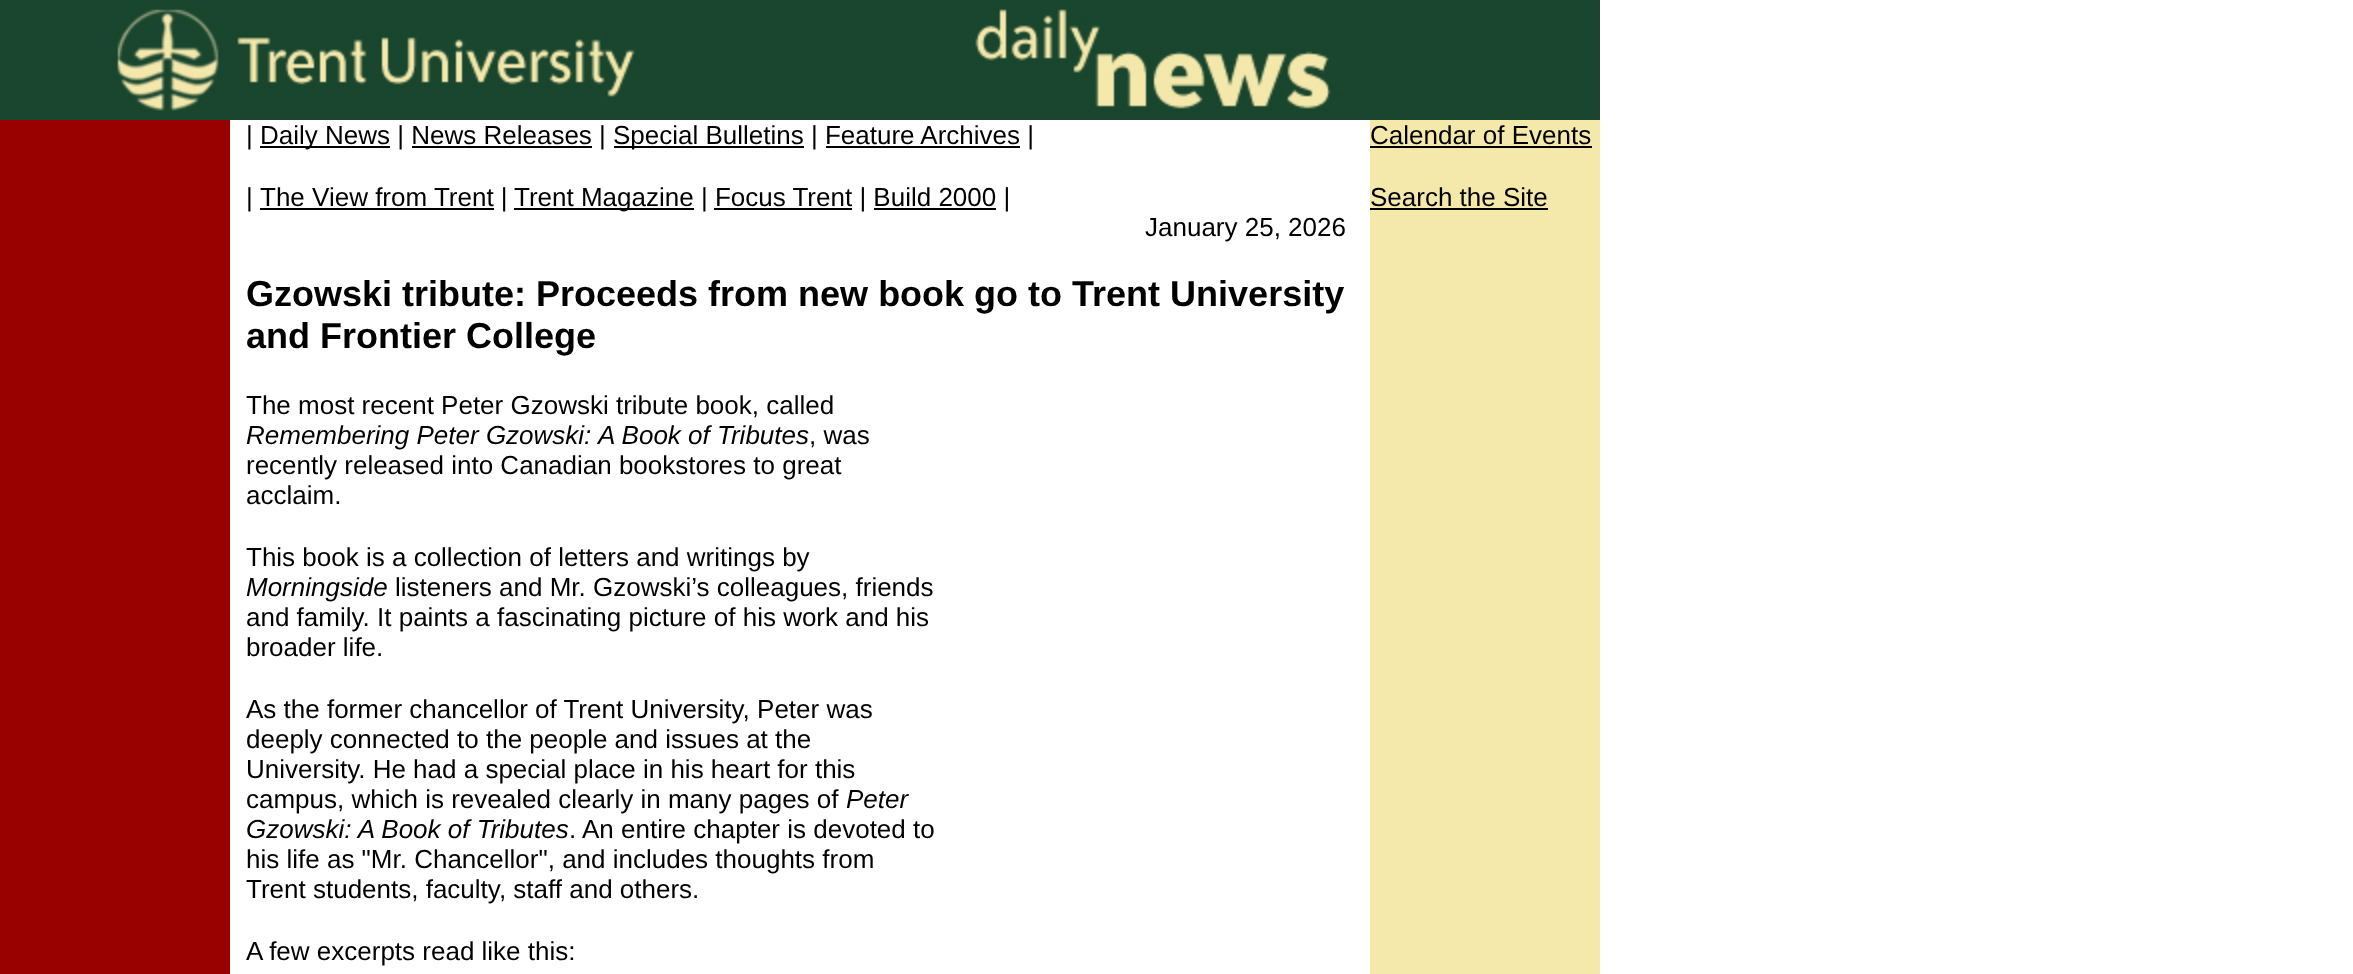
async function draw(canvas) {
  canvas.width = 2353;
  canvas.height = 974;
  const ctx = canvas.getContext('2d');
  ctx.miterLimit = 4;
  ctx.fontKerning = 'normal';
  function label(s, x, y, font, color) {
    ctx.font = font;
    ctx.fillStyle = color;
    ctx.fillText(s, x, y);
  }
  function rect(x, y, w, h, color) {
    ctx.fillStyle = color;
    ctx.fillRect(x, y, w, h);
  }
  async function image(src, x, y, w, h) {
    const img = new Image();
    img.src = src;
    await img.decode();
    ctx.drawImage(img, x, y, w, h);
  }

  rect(0, 0, 2353, 974, '#fff');
  await image('assets/img1.png', 0, 0, 1600, 120);
  label('|', 246, 144, '26px Liberation Sans', '#000');
  rect(260, 146, 130, 2, '#000');
  label('Daily News | News Releases |', 260, 144, '26px Liberation Sans', '#000');
  rect(412, 146, 180, 2, '#000');
  rect(614, 146, 190, 2, '#000');
  label('Special Bulletins | Feature Archives |', 613, 144, '26px Liberation Sans', '#000');
  rect(826, 146, 194, 2, '#000');
  label('|', 246, 206, '26px Liberation Sans', '#000');
  rect(260, 208, 234, 2, '#000');
  label('The View from Trent |', 260, 206, '26px Liberation Sans', '#000');
  rect(514, 208, 180, 2, '#000');
  label('Trent Magazine | Focus Trent | Build 2000 |', 514, 206, '26px Liberation Sans', '#000');
  rect(714, 208, 138, 2, '#000');
  rect(874, 208, 122, 2, '#000');
  rect(0, 120, 230, 854, '#900');
  rect(1370, 120, 230, 854, '#f4e8ab');
  label('Calendar of Events', 1370, 144, '26px Liberation Sans', '#000');
  rect(1370, 146, 222, 2, '#000');
  label('Search the Site', 1370, 206, '26px Liberation Sans', '#000');
  rect(1370, 208, 178, 2, '#000');
  label('January 25, 2026', 1145, 236, '26px Liberation Sans', '#000');
  label('Gzowski tribute: Proceeds from new book go to Trent University', 246, 306, 'bold 36px Liberation Sans', '#000');
  label('and Frontier College', 246, 348, 'bold 36px Liberation Sans', '#000');
  label('The most recent Peter Gzowski tribute book, called', 246, 414, '26px Liberation Sans', '#000');
  label('Remembering Peter Gzowski:', 246, 444, 'italic 26px Liberation Sans', '#000');
  label('A Book of Tributes', 598, 444, 'italic 26px Liberation Sans', '#000');
  label(', was', 809, 444, '26px Liberation Sans', '#000');
  label('recently released into Canadian bookstores to great', 246, 474, '26px Liberation Sans', '#000');
  label('acclaim.', 246, 504, '26px Liberation Sans', '#000');
  label('This book is a collection of letters and writings by', 246, 566, '26px Liberation Sans', '#000');
  label('Morningside', 246, 596, 'italic 26px Liberation Sans', '#000');
  label('listeners and Mr. Gzowski’s colleagues, friends', 395, 596, '26px Liberation Sans', '#000');
  label('and family. It paints a fascinating picture of his work and his', 246, 626, '26px Liberation Sans', '#000');
  label('broader life.', 246, 656, '26px Liberation Sans', '#000');
  label('As the former chancellor of Trent University, Peter was', 246, 718, '26px Liberation Sans', '#000');
  label('deeply connected to the people and issues at the', 246, 748, '26px Liberation Sans', '#000');
  label('University. He had a special place in his heart for this', 246, 778, '26px Liberation Sans', '#000');
  label('campus, which is revealed clearly in many pages of', 246, 808, '26px Liberation Sans', '#000');
  label('Peter', 846, 808, 'italic 26px Liberation Sans', '#000');
  label('Gzowski: A Book of Tributes', 246, 838, 'italic 26px Liberation Sans', '#000');
  label('. An entire chapter is devoted to', 569, 838, '26px Liberation Sans', '#000');
  label('his life as "Mr. Chancellor", and includes thoughts from', 246, 868, '26px Liberation Sans', '#000');
  label('Trent students, faculty, staff and others.', 246, 898, '26px Liberation Sans', '#000');
  label('A few excerpts read like this:', 246, 960, '26px Liberation Sans', '#000');
}

draw(document.querySelector('canvas'));
